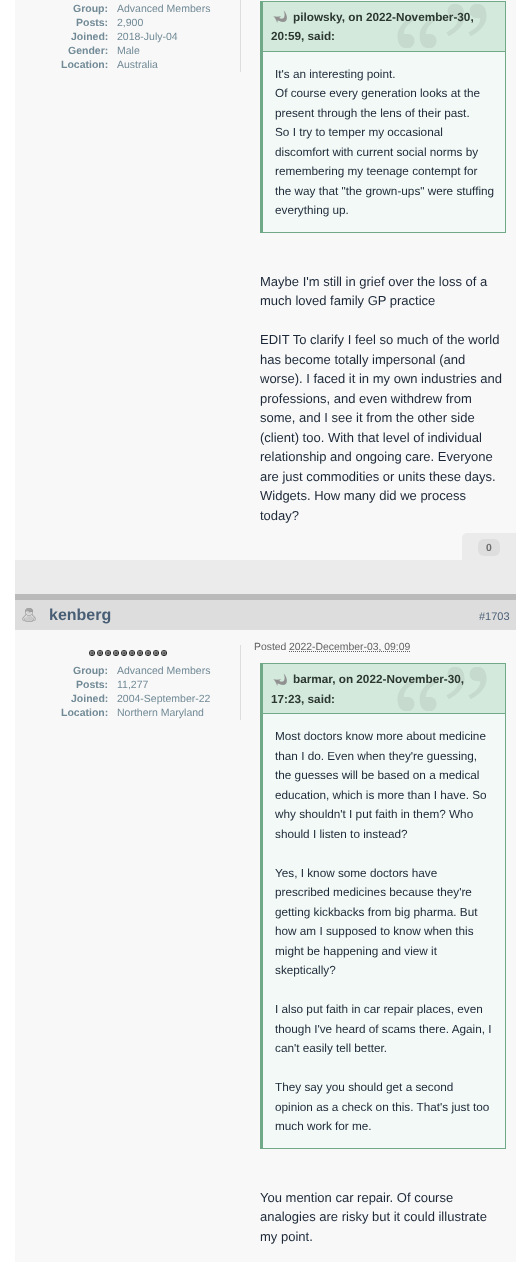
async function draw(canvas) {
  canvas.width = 531;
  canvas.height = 1262;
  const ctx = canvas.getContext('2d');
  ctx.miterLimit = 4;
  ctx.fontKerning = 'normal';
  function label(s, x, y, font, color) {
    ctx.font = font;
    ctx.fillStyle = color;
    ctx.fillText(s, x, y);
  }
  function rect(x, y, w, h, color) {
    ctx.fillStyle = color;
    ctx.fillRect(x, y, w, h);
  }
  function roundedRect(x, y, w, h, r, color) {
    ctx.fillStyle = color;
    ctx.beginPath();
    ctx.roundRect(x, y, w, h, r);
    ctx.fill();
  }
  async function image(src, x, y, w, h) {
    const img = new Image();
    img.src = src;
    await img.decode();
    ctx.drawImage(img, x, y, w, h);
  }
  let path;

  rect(0, 0, 531, 1262, '#fff');
  rect(15, 0, 501, 560, '#f8f8f8');
  rect(15, 594, 501, 6, '#bababa');
  rect(240, 0, 1, 72, '#ddd');
  label('Group:', 73, 12, 'bold 10.5px Liberation Sans', '#718a96');
  label('Advanced Members', 117, 12, '10.5px Liberation Sans', '#718a96');
  label('Posts:', 76, 26, 'bold 10.5px Liberation Sans', '#718a96');
  label('2,900', 117, 26, '10.5px Liberation Sans', '#718a96');
  label('Joined:', 71, 40, 'bold 10.5px Liberation Sans', '#718a96');
  label('2018-July-04', 117, 40, '10.5px Liberation Sans', '#718a96');
  label('Gender:', 68, 54, 'bold 10.5px Liberation Sans', '#718a96');
  label('Male', 117, 54, '10.5px Liberation Sans', '#718a96');
  label('Location:', 61, 68, 'bold 10.5px Liberation Sans', '#718a96');
  label('Australia', 117, 68, '10.5px Liberation Sans', '#718a96');
  rect(263, 2, 242, 49, '#d3e9dc');
  await image('assets/img1.png', 397, 4, 90, 44);
  rect(260, 1, 246, 1, '#6fa987');
  rect(505, 1, 1, 50, '#6fa987');
  rect(260, 1, 3, 50, '#6fa987');
  await image('assets/img2.png', 273, 10, 14, 13);
  label('pilowsky, on 2022-November-30,', 293, 21, 'bold 11.75px Liberation Sans', '#2b3730');
  label('20:59, said:', 271, 40, 'bold 11.75px Liberation Sans', '#2b3730');
  rect(263, 52, 242, 180, '#f3f9f6');
  rect(260, 51, 246, 1, '#6fa987');
  rect(505, 51, 1, 182, '#6fa987');
  rect(260, 232, 246, 1, '#6fa987');
  rect(260, 51, 3, 182, '#6fa987');
  label('It\'s an interesting point.', 275, 78, '11.75px Liberation Sans', '#1c2837');
  label('Of course every generation looks at the', 275, 97, '11.75px Liberation Sans', '#1c2837');
  label('present through the lens of their past.', 275, 117, '11.75px Liberation Sans', '#1c2837');
  label('So I try to temper my occasional', 275, 136, '11.75px Liberation Sans', '#1c2837');
  label('discomfort with current social norms by', 275, 156, '11.75px Liberation Sans', '#1c2837');
  label('remembering my teenage contempt for', 275, 175, '11.75px Liberation Sans', '#1c2837');
  label('the way that "the grown-ups" were stuffing', 275, 195, '11.75px Liberation Sans', '#1c2837');
  label('everything up.', 275, 214, '11.75px Liberation Sans', '#1c2837');
  label('Maybe I\'m still in grief over the loss of a', 260, 286, '13px Liberation Sans', '#1c2837');
  label('much loved family GP practice', 260, 305, '13px Liberation Sans', '#1c2837');
  label('EDIT To clarify I feel so much of the world', 260, 344, '13px Liberation Sans', '#1c2837');
  label('has become totally impersonal (and', 260, 364, '13px Liberation Sans', '#1c2837');
  label('worse). I faced it in my own industries and', 260, 383, '13px Liberation Sans', '#1c2837');
  label('professions, and even withdrew from', 260, 403, '13px Liberation Sans', '#1c2837');
  label('some, and I see it from the other side', 260, 422, '13px Liberation Sans', '#1c2837');
  label('(client) too. With that level of individual', 260, 442, '13px Liberation Sans', '#1c2837');
  label('relationship and ongoing care. Everyone', 260, 461, '13px Liberation Sans', '#1c2837');
  label('are just commodities or units these days.', 260, 481, '13px Liberation Sans', '#1c2837');
  label('Widgets. How many did we process', 260, 500, '13px Liberation Sans', '#1c2837');
  label('today?', 260, 520, '13px Liberation Sans', '#1c2837');
  rect(15, 560, 501, 34, '#ebebeb');
  ctx.beginPath();
  ctx.roundRect(462, 533, 54, 29, [5, 0, 0, 0]);
  ctx.fill();
  roundedRect(478, 539, 22, 17, 6, '#dedede');
  label('0', 486, 551, 'bold 10.4px Liberation Sans', '#6e6e6e');
  rect(15, 630, 501, 632, '#f8f8f8');
  rect(15, 600, 501, 30, '#ddd');
  await image('assets/img3.png', 22, 608, 14, 14);
  label('kenberg', 49, 620, 'bold 16px Liberation Sans', '#485e75');
  label('#1703', 479, 620, '11px Liberation Sans', '#485e75');
  rect(240, 645, 1, 75, '#ddd');
  await image('assets/img4.png', 89, 650, 6, 6);
  await image('assets/img4.png', 97, 650, 6, 6);
  await image('assets/img4.png', 105, 650, 6, 6);
  await image('assets/img4.png', 113, 650, 6, 6);
  await image('assets/img4.png', 121, 650, 6, 6);
  await image('assets/img4.png', 129, 650, 6, 6);
  await image('assets/img4.png', 137, 650, 6, 6);
  await image('assets/img4.png', 145, 650, 6, 6);
  await image('assets/img4.png', 153, 650, 6, 6);
  await image('assets/img4.png', 161, 650, 6, 6);
  label('Group:', 73, 674, 'bold 10.5px Liberation Sans', '#718a96');
  label('Advanced Members', 117, 674, '10.5px Liberation Sans', '#718a96');
  label('Posts:', 76, 688, 'bold 10.5px Liberation Sans', '#718a96');
  label('11,277', 117, 688, '10.5px Liberation Sans', '#718a96');
  label('Joined:', 71, 702, 'bold 10.5px Liberation Sans', '#718a96');
  label('2004-September-22', 117, 702, '10.5px Liberation Sans', '#718a96');
  label('Location:', 61, 716, 'bold 10.5px Liberation Sans', '#718a96');
  label('Northern Maryland', 117, 716, '10.5px Liberation Sans', '#718a96');
  label('Posted', 254, 650, '10.4px Liberation Sans', '#606060');
  path = new Path2D('M289 651.5H410.5');
  ctx.strokeStyle = '#606060';
  ctx.setLineDash([1, 1]);
  ctx.stroke(path);
  label('2022-December-03, 09:09', 289, 650, '10.4px Liberation Sans', '#606060');
  rect(263, 664, 242, 49, '#d3e9dc');
  await image('assets/img1.png', 397, 667, 90, 44);
  rect(260, 663, 246, 1, '#6fa987');
  rect(505, 663, 1, 50, '#6fa987');
  rect(260, 663, 3, 50, '#6fa987');
  await image('assets/img2.png', 273, 673, 14, 13);
  label('barmar, on 2022-November-30,', 293, 683, 'bold 11.75px Liberation Sans', '#2b3730');
  label('17:23, said:', 271, 703, 'bold 11.75px Liberation Sans', '#2b3730');
  rect(263, 714, 242, 434, '#f3f9f6');
  rect(260, 713, 246, 1, '#6fa987');
  rect(505, 713, 1, 436, '#6fa987');
  rect(260, 1148, 246, 1, '#6fa987');
  rect(260, 713, 3, 436, '#6fa987');
  label('Most doctors know more about medicine', 275, 740, '11.75px Liberation Sans', '#1c2837');
  label('than I do. Even when they\'re guessing,', 275, 760, '11.75px Liberation Sans', '#1c2837');
  label('the guesses will be based on a medical', 275, 779, '11.75px Liberation Sans', '#1c2837');
  label('education, which is more than I have. So', 275, 799, '11.75px Liberation Sans', '#1c2837');
  label('why shouldn\'t I put faith in them? Who', 275, 818, '11.75px Liberation Sans', '#1c2837');
  label('should I listen to instead?', 275, 838, '11.75px Liberation Sans', '#1c2837');
  label('Yes, I know some doctors have', 275, 877, '11.75px Liberation Sans', '#1c2837');
  label('prescribed medicines because they\'re', 275, 896, '11.75px Liberation Sans', '#1c2837');
  label('getting kickbacks from big pharma. But', 275, 916, '11.75px Liberation Sans', '#1c2837');
  label('how am I supposed to know when this', 275, 935, '11.75px Liberation Sans', '#1c2837');
  label('might be happening and view it', 275, 955, '11.75px Liberation Sans', '#1c2837');
  label('skeptically?', 275, 974, '11.75px Liberation Sans', '#1c2837');
  label('I also put faith in car repair places, even', 275, 1013, '11.75px Liberation Sans', '#1c2837');
  label('though I\'ve heard of scams there. Again, I', 275, 1033, '11.75px Liberation Sans', '#1c2837');
  label('can\'t easily tell better.', 275, 1052, '11.75px Liberation Sans', '#1c2837');
  label('They say you should get a second', 275, 1091, '11.75px Liberation Sans', '#1c2837');
  label('opinion as a check on this. That\'s just too', 275, 1111, '11.75px Liberation Sans', '#1c2837');
  label('much work for me.', 275, 1130, '11.75px Liberation Sans', '#1c2837');
  label('You mention car repair. Of course', 260, 1202, '13px Liberation Sans', '#1c2837');
  label('analogies are risky but it could illustrate', 260, 1221, '13px Liberation Sans', '#1c2837');
  label('my point.', 260, 1241, '13px Liberation Sans', '#1c2837');
}

draw(document.querySelector('canvas'));
